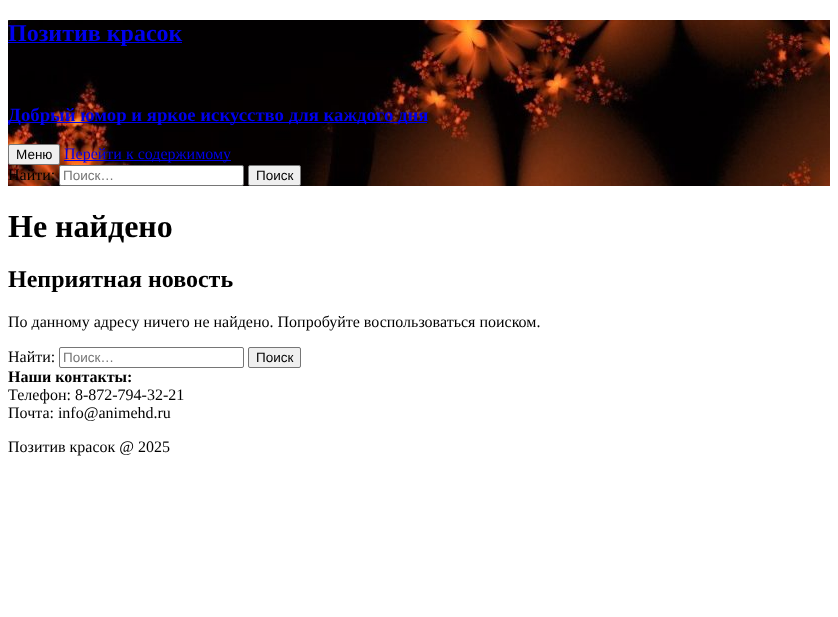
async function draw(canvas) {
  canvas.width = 838;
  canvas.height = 617;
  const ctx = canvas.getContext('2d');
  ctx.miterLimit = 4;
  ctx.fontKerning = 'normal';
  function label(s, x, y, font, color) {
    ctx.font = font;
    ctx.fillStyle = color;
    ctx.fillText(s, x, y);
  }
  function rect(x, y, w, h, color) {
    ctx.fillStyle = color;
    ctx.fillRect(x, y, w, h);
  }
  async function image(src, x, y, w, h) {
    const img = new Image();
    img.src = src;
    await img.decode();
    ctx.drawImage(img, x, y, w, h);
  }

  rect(0, 0, 838, 617, '#fff');
  await image('assets/img1.png', 8, 20, 822, 166);
  rect(8, 42, 174, 1, '#00e');
  label('Позитив красок', 8, 41, 'bold 24px Liberation Serif', '#00e');
  rect(8, 122, 419, 1, '#00e');
  label('Добрый юмор и яркое искусство для каждого дня', 8, 121, 'bold 18.75px Liberation Serif', '#00e');
  ctx.fillStyle = '#efefef';
  ctx.beginPath();
  ctx.roundRect(8.5, 144.5, 51, 20, 1.5);
  ctx.fill();
  ctx.strokeStyle = '#767676';
  ctx.stroke();
  label('Меню', 16, 159, '13.5px Liberation Sans', '#000');
  rect(64, 160, 167, 1, '#00e');
  label('Перейти к содержимому', 64, 159, '16px Liberation Serif', '#00e');
  label('Найти:', 8, 180, '16px Liberation Serif', '#000');
  ctx.fillStyle = '#fff';
  ctx.beginPath();
  ctx.roundRect(59.5, 165.5, 184, 20, 1.5);
  ctx.fill();
  ctx.stroke();
  label('Поиск…', 63, 180, '13.5px Liberation Sans', '#757575');
  ctx.fillStyle = '#efefef';
  ctx.beginPath();
  ctx.roundRect(248.5, 165.5, 52, 20, 1.5);
  ctx.fill();
  ctx.stroke();
  label('Поиск', 256, 180, '13.5px Liberation Sans', '#000');
  label('Не найдено', 8, 237, 'bold 32px Liberation Serif', '#000');
  label('Неприятная новость', 8, 287, 'bold 24px Liberation Serif', '#000');
  label('По данному адресу ничего не найдено. Попробуйте воспользоваться поиском.', 8, 327, '16px Liberation Serif', '#000');
  label('Найти:', 8, 362, '16px Liberation Serif', '#000');
  ctx.beginPath();
  ctx.roundRect(59.5, 347.5, 184, 20, 1.5);
  ctx.stroke();
  label('Поиск…', 63, 362, '13.5px Liberation Sans', '#757575');
  ctx.fillStyle = '#efefef';
  ctx.beginPath();
  ctx.roundRect(248.5, 347.5, 52, 20, 1.5);
  ctx.fill();
  ctx.stroke();
  label('Поиск', 256, 362, '13.5px Liberation Sans', '#000');
  label('Наши контакты:', 8, 382, 'bold 16px Liberation Serif', '#000');
  label('Телефон: 8-872-794-32-21', 8, 400, '16px Liberation Serif', '#000');
  label('Почта: info@animehd.ru', 8, 418, '16px Liberation Serif', '#000');
  label('Позитив красок @ 2025', 8, 452, '16px Liberation Serif', '#000');
}

draw(document.querySelector('canvas'));
